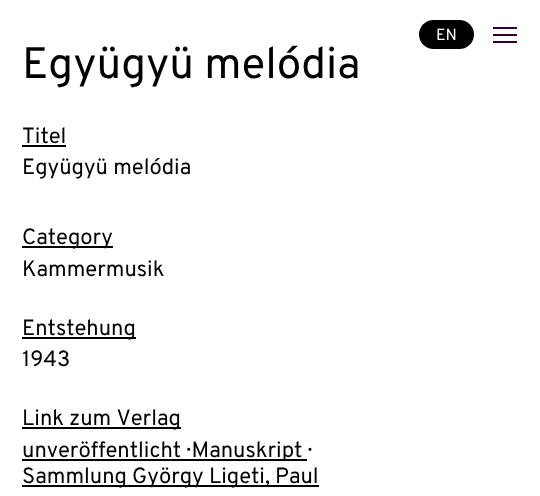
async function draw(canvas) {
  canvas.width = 540;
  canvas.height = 496;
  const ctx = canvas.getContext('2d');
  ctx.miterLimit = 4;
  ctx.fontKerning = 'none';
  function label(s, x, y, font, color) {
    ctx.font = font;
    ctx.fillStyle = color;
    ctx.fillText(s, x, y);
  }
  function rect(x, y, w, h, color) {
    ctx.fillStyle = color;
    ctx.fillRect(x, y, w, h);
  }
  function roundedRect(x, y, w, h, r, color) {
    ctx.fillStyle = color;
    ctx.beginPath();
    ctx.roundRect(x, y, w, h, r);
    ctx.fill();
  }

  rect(0, 0, 540, 496, '#fff');
  roundedRect(419, 20, 55, 29, 14.5, '#000');
  label('EN', 436, 40, '16px Overpass', '#fff');
  rect(493, 27, 24, 2, '#330133');
  rect(493, 34, 24, 2, '#330133');
  rect(493, 41, 24, 2, '#330133');
  label('Együgyü melódia', 22, 78, '44px Overpass', '#000');
  label('Titel', 22, 143, '22px Overpass', '#000');
  rect(22, 145, 44, 2, '#000');
  label('Együgyü melódia', 22, 174, '22px Overpass', '#000');
  rect(22, 246, 91, 2, '#000');
  label('Category', 22, 244, '22px Overpass', '#000');
  label('Kammermusik', 22, 276, '22px Overpass', '#000');
  rect(22, 337, 114, 2, '#000');
  label('Entstehung', 22, 335, '22px Overpass', '#000');
  label('1943', 22, 366, '22px Overpass', '#000');
  rect(22, 427, 159, 2, '#000');
  label('Link zum Verlag', 22, 425, '22px Overpass', '#000');
  rect(22, 459, 285, 2, '#000');
  label('unveröffentlicht · Manuskript ·', 22, 457, '22px Overpass', '#000');
  rect(22, 485, 297, 2, '#000');
  label('Sammlung György Ligeti, Paul', 22, 483, '22px Overpass', '#000');
}

draw(document.querySelector('canvas'));
